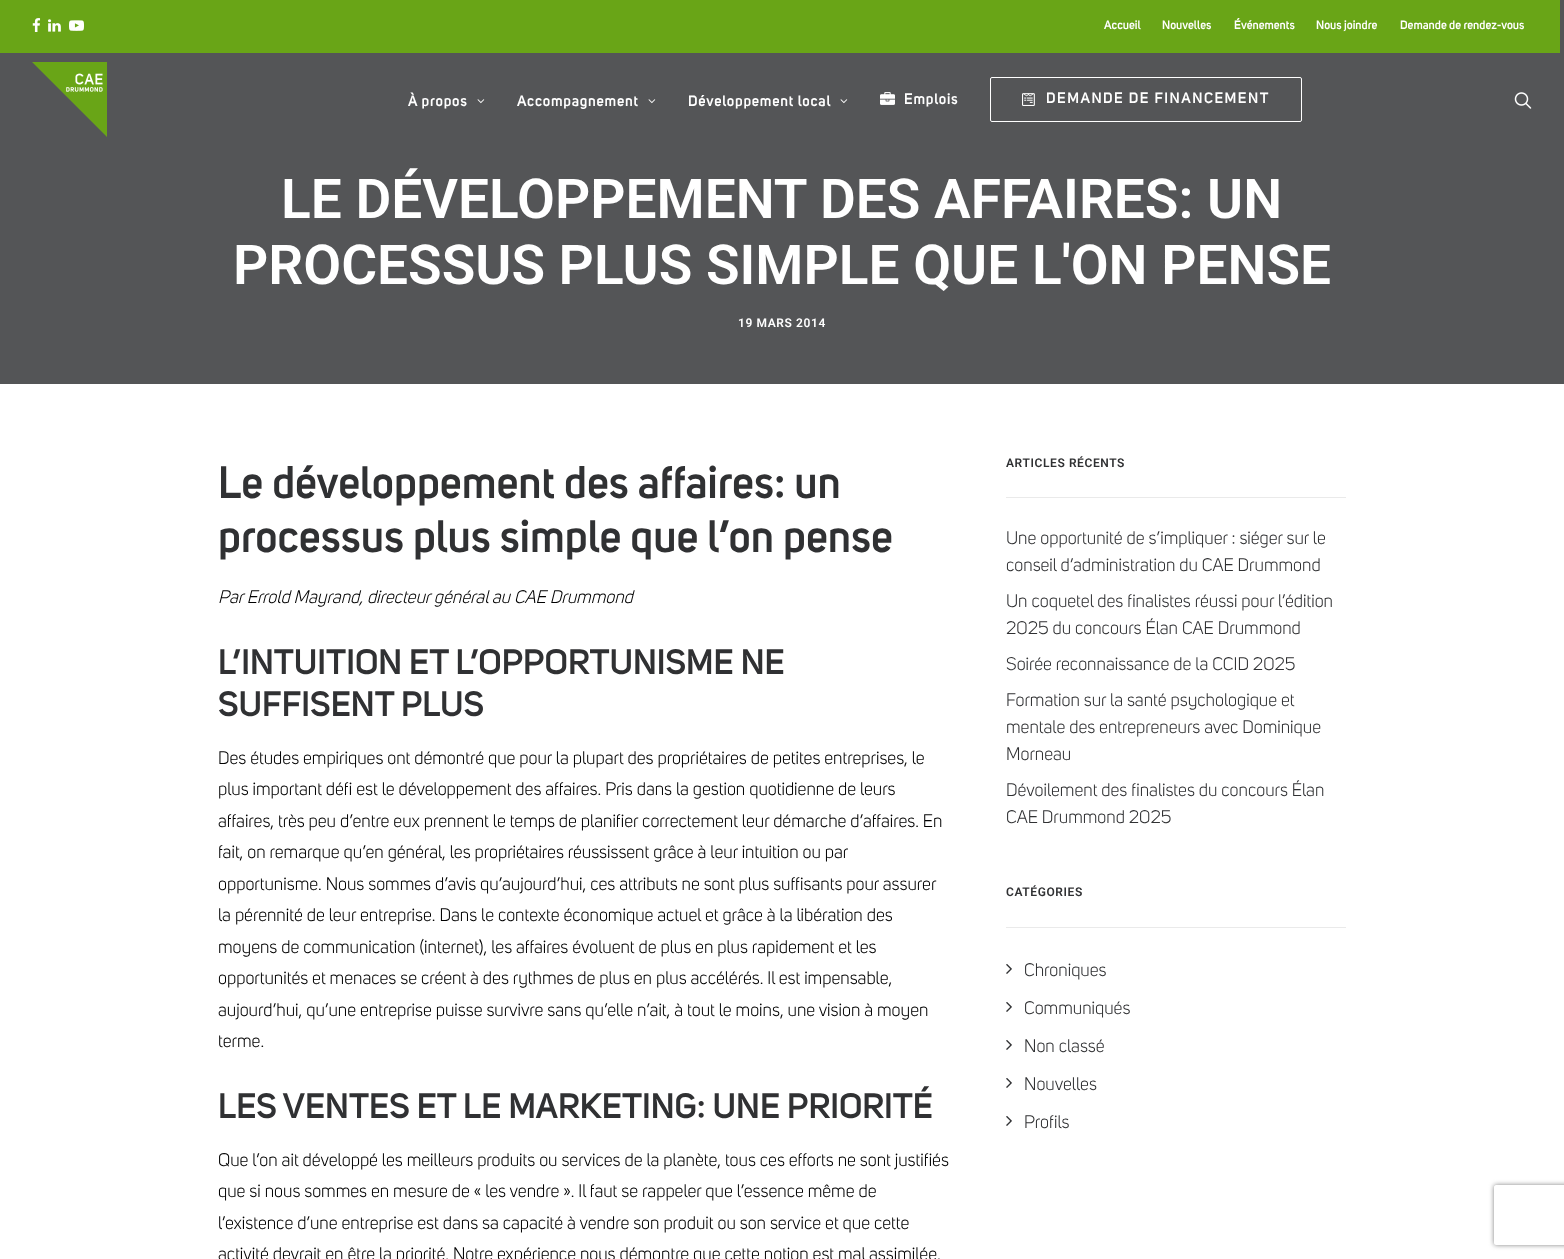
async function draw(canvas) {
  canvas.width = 1564;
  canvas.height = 1259;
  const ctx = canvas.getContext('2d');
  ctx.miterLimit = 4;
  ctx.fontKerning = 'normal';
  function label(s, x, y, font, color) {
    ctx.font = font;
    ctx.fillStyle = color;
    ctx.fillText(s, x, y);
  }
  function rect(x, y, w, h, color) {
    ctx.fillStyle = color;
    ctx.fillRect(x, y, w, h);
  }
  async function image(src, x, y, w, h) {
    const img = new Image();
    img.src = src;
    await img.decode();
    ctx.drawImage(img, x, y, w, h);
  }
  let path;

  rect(0, 0, 1564, 1259, '#545557');
  rect(0, 0, 1560, 53, '#69a517');
  await image('assets/img1.png', 32, 18, 9, 14);
  await image('assets/img2.png', 48, 19, 13, 13);
  await image('assets/img3.png', 69, 20, 15, 11);
  label('Accueil', 1104, 29, '600 12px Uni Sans', '#fff');
  label('Nouvelles', 1162, 29, '600 12px Uni Sans', '#fff');
  label('Événements', 1234, 29, '600 12px Uni Sans', '#fff');
  label('Nous joindre', 1316, 29, '600 12px Uni Sans', '#fff');
  label('Demande de rendez-vous', 1400, 29, '600 12px Uni Sans', '#fff');
  await image('assets/img4.png', 32, 62, 75, 75);
  ctx.letterSpacing = '0.75px';
  label('À propos', 408, 106, '600 15px Uni Sans', '#fff');
  await image('assets/img5.png', 477, 99, 8, 5);
  label('Accompagnement', 517, 106, '600 15px Uni Sans', '#fff');
  await image('assets/img5.png', 648, 99, 8, 5);
  label('Développement local', 688, 106, '600 15px Uni Sans', '#fff');
  await image('assets/img5.png', 840, 99, 8, 5);
  await image('assets/img6.png', 880, 92, 15, 13);
  label('Emplois', 904, 104, '600 15px Uni Sans', '#fff');
  ctx.beginPath();
  ctx.roundRect(990.5, 77.5, 311, 44, 1.5);
  ctx.strokeStyle = '#fff';
  ctx.stroke();
  await image('assets/img7.png', 1022, 93, 13, 13);
  ctx.letterSpacing = '1.5px';
  label('DEMANDE DE FINANCEMENT', 1046, 103, '600 15px Uni Sans', '#fff');
  await image('assets/img8.png', 1514, 92, 18, 17);
  ctx.letterSpacing = '0px';
  label('LE DÉVELOPPEMENT DES AFFAIRES: UN', 281, 218, '600 55px Roboto', '#fff');
  label('PROCESSUS PLUS SIMPLE QUE L\'ON PENSE', 233, 284, '600 55px Roboto', '#fff');
  ctx.letterSpacing = '0.6px';
  label('19 MARS 2014', 738, 327, '600 12px Roboto', '#fff');
  rect(0, 384, 1564, 875, '#fff');
  ctx.letterSpacing = '0px';
  label('Le développement des affaires: un', 218, 498, '600 45px Uni Sans', '#303133');
  label('processus plus simple que l’on pense', 218, 552, '600 45px Uni Sans', '#303133');
  label('Par Errold Mayrand, directeur général au CAE Drummond', 218, 603, 'italic 18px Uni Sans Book', '#000');
  label('L’INTUITION ET L’OPPORTUNISME NE', 218, 674, '600 35px Uni Sans', '#303133');
  label('SUFFISENT PLUS', 218, 716, '600 35px Uni Sans', '#303133');
  label('Des études empiriques ont démontré que pour la plupart des propriétaires de petites entreprises, le', 218, 764, '18px Uni Sans Book', '#000');
  label('plus important défi est le développement des affaires. Pris dans la gestion quotidienne de leurs', 218, 795, '18px Uni Sans Book', '#000');
  label('affaires, très peu d’entre eux prennent le temps de planifier correctement leur démarche d’affaires. En', 218, 827, '18px Uni Sans Book', '#000');
  label('fait, on remarque qu’en général, les propriétaires réussissent grâce à leur intuition ou par', 218, 858, '18px Uni Sans Book', '#000');
  label('opportunisme. Nous sommes d’avis qu’aujourd’hui, ces attributs ne sont plus suffisants pour assurer', 218, 890, '18px Uni Sans Book', '#000');
  label('la pérennité de leur entreprise. Dans le contexte économique actuel et grâce à la libération des', 218, 921, '18px Uni Sans Book', '#000');
  label('moyens de communication (internet), les affaires évoluent de plus en plus rapidement et les', 218, 953, '18px Uni Sans Book', '#000');
  label('opportunités et menaces se créent à des rythmes de plus en plus accélérés. Il est impensable,', 218, 984, '18px Uni Sans Book', '#000');
  label('aujourd’hui, qu’une entreprise puisse survivre sans qu’elle n’ait, à tout le moins, une vision à moyen', 218, 1016, '18px Uni Sans Book', '#000');
  label('terme.', 218, 1047, '18px Uni Sans Book', '#000');
  label('LES VENTES ET LE MARKETING: UNE PRIORITÉ', 218, 1118, '600 35px Uni Sans', '#303133');
  label('Que l’on ait développé les meilleurs produits ou services de la planète, tous ces efforts ne sont justifiés', 218, 1166, '18px Uni Sans Book', '#000');
  label('que si nous sommes en mesure de « les vendre ». Il faut se rappeler que l’essence même de', 218, 1197, '18px Uni Sans Book', '#000');
  label('l’existence d’une entreprise est dans sa capacité à vendre son produit ou son service et que cette', 218, 1229, '18px Uni Sans Book', '#000');
  label('activité devrait en être la priorité. Notre expérience nous démontre que cette notion est mal assimilée,', 218, 1260, '18px Uni Sans Book', '#000');
  rect(1006, 497, 340, 1, '#eaeaea');
  ctx.letterSpacing = '0.6px';
  label('ARTICLES RÉCENTS', 1006, 467, '600 12px Roboto', '#303133');
  ctx.letterSpacing = '0px';
  label('Une opportunité de s’impliquer : siéger sur le', 1006, 544, '18px Uni Sans Book', '#303133');
  label('conseil d’administration du CAE Drummond', 1006, 571, '18px Uni Sans Book', '#303133');
  label('Un coquetel des finalistes réussi pour l’édition', 1006, 607, '18px Uni Sans Book', '#303133');
  label('2025 du concours Élan CAE Drummond', 1006, 634, '18px Uni Sans Book', '#303133');
  label('Soirée reconnaissance de la CCID 2025', 1006, 670, '18px Uni Sans Book', '#303133');
  label('Formation sur la santé psychologique et', 1006, 706, '18px Uni Sans Book', '#303133');
  label('mentale des entrepreneurs avec Dominique', 1006, 733, '18px Uni Sans Book', '#303133');
  label('Morneau', 1006, 760, '18px Uni Sans Book', '#303133');
  label('Dévoilement des finalistes du concours Élan', 1006, 796, '18px Uni Sans Book', '#303133');
  label('CAE Drummond 2025', 1006, 823, '18px Uni Sans Book', '#303133');
  rect(1006, 927, 340, 1, '#eaeaea');
  ctx.letterSpacing = '0.6px';
  label('CATÉGORIES', 1006, 896, '600 12px Roboto', '#303133');
  await image('assets/img9.png', 1006, 964, 6, 10);
  ctx.letterSpacing = '0px';
  label('Chroniques', 1024, 976, '18px Uni Sans Book', '#303133');
  await image('assets/img9.png', 1006, 1002, 6, 10);
  label('Communiqués', 1024, 1014, '18px Uni Sans Book', '#303133');
  await image('assets/img9.png', 1006, 1040, 6, 10);
  label('Non classé', 1024, 1052, '18px Uni Sans Book', '#303133');
  await image('assets/img9.png', 1006, 1078, 6, 10);
  label('Nouvelles', 1024, 1090, '18px Uni Sans Book', '#303133');
  await image('assets/img9.png', 1006, 1116, 6, 10);
  label('Profils', 1024, 1128, '18px Uni Sans Book', '#303133');
  ctx.save();
  path = new Path2D('M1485 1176H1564V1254H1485ZM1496 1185H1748C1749 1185 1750 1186 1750 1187V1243C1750 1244 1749 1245 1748 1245H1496C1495 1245 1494 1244 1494 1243V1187C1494 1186 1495 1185 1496 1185Z');
  ctx.clip(path, 'evenodd');
  ctx.fillStyle = '#808080';
  ctx.filter = 'blur(2.5px)';
  ctx.beginPath();
  ctx.roundRect(1494, 1185, 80, 60, 2);
  ctx.fill();
  ctx.filter = 'none';
  ctx.restore();
}

draw(document.querySelector('canvas'));
